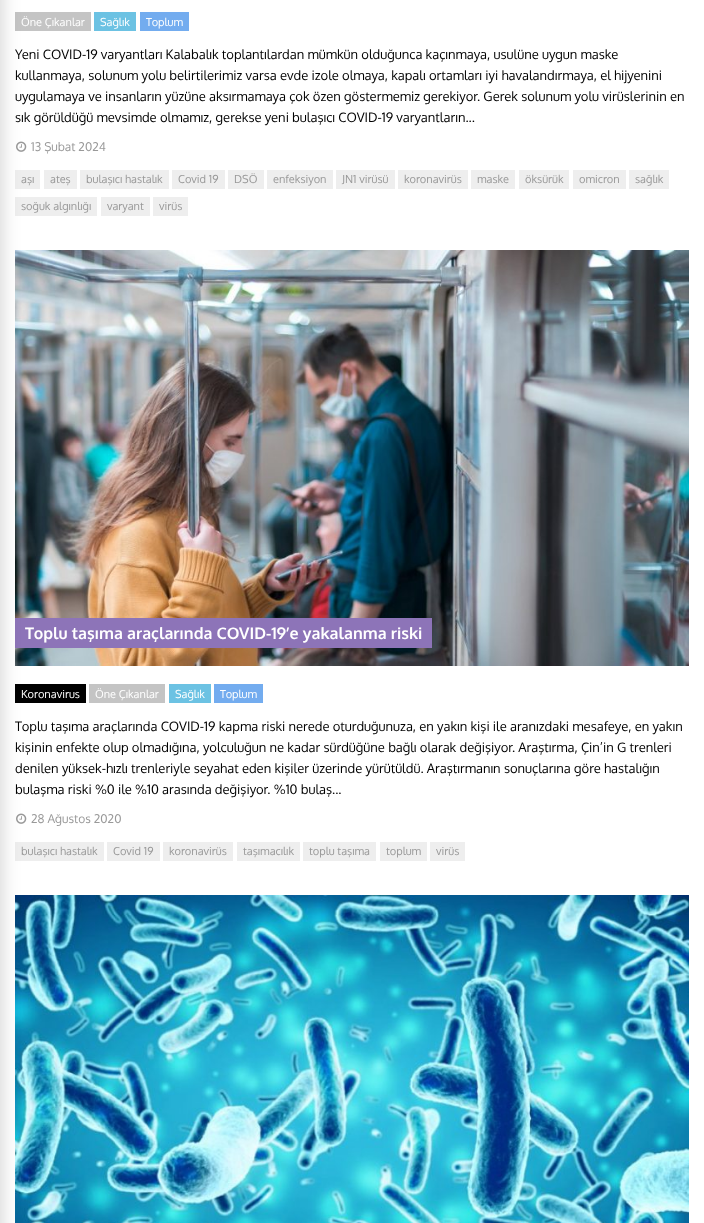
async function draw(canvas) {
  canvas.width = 704;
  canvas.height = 1223;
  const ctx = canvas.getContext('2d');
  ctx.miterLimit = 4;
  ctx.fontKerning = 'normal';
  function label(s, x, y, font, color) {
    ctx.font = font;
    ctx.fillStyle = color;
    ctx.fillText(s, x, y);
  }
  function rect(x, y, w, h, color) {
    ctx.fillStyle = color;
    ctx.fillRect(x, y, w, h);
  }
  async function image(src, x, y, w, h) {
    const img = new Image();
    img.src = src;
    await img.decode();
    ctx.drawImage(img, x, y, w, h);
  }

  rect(0, 0, 704, 1223, '#fff');
  rect(15, 12, 76, 19, '#c4c4c4');
  await image('assets/img1.png', 16, 141, 11, 11);
  rect(15, 170, 25, 19, '#eee');
  rect(15, 197, 82, 19, '#eee');
  await image('assets/img2.png', 15, 250, 674, 416);
  rect(15, 618, 417, 30, '#8d74b8');
  rect(15, 684, 71, 19, '#000');
  await image('assets/img1.png', 16, 813, 11, 11);
  rect(15, 842, 89, 19, '#eee');
  await image('assets/img3.png', 15, 895, 674, 328);
  ctx.fillStyle = '#00000033';
  ctx.filter = 'blur(10px)';
  ctx.beginPath();
  ctx.rect(-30, -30, 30, 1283);
  ctx.fill();
  ctx.filter = 'none';
  label('Öne Çıkanlar', 21, 26, '11px Oxygen', '#fff');
  rect(94, 12, 42, 19, '#6cc2e3');
  label('Sağlık', 100, 26, '11px Oxygen', '#fff');
  rect(140, 12, 49, 19, '#73acef');
  label('Toplum', 146, 26, '11px Oxygen', '#fff');
  label('Yeni COVID-19 varyantları Kalabalık toplantılardan mümkün olduğunca kaçınmaya, usulüne uygun maske', 15, 59, '13px Oxygen', '#000');
  label('kullanmaya, solunum yolu belirtilerimiz varsa evde izole olmaya, kapalı ortamları iyi havalandırmaya, el hijyenini', 15, 80, '13px Oxygen', '#000');
  label('uygulamaya ve insanların yüzüne aksırmamaya çok özen göstermemiz gerekiyor. Gerek solunum yolu virüslerinin en', 15, 101, '13px Oxygen', '#000');
  label('sık görüldüğü mevsimde olmamız, gerekse yeni bulaşıcı COVID-19 varyantların...', 15, 122, '13px Oxygen', '#000');
  label('13 Şubat 2024', 31, 151, '12px Oxygen', '#999');
  label('aşı', 21, 183, '11px Oxygen', '#999');
  rect(44, 170, 33, 19, '#eee');
  label('ateş', 50, 183, '11px Oxygen', '#999');
  rect(80, 170, 89, 19, '#eee');
  label('bulaşıcı hastalık', 86, 183, '11px Oxygen', '#999');
  rect(172, 170, 53, 19, '#eee');
  label('Covid 19', 178, 183, '11px Oxygen', '#999');
  rect(228, 170, 36, 19, '#eee');
  label('DSÖ', 234, 183, '11px Oxygen', '#999');
  rect(267, 170, 66, 19, '#eee');
  label('enfeksiyon', 273, 183, '11px Oxygen', '#999');
  rect(336, 170, 59, 19, '#eee');
  label('JN1 virüsü', 342, 183, '11px Oxygen', '#999');
  rect(398, 170, 70, 19, '#eee');
  label('koronavirüs', 404, 183, '11px Oxygen', '#999');
  rect(471, 170, 44, 19, '#eee');
  label('maske', 477, 183, '11px Oxygen', '#999');
  rect(519, 170, 50, 19, '#eee');
  label('öksürük', 525, 183, '11px Oxygen', '#999');
  rect(573, 170, 53, 19, '#eee');
  label('omicron', 579, 183, '11px Oxygen', '#999');
  rect(629, 170, 40, 19, '#eee');
  label('sağlık', 635, 183, '11px Oxygen', '#999');
  label('soğuk algınlığı', 21, 210, '11px Oxygen', '#999');
  rect(101, 197, 49, 19, '#eee');
  label('varyant', 107, 210, '11px Oxygen', '#999');
  rect(153, 197, 35, 19, '#eee');
  label('virüs', 159, 210, '11px Oxygen', '#999');
  label('Toplu taşıma araçlarında COVID-19’e yakalanma riski', 25, 639, 'bold 16px Oxygen', '#fff');
  label('Koronavirus', 21, 698, '11px Oxygen', '#fff');
  rect(89, 684, 76, 19, '#c4c4c4');
  label('Öne Çıkanlar', 95, 698, '11px Oxygen', '#fff');
  rect(169, 684, 42, 19, '#6cc2e3');
  label('Sağlık', 175, 698, '11px Oxygen', '#fff');
  rect(214, 684, 49, 19, '#73acef');
  label('Toplum', 220, 698, '11px Oxygen', '#fff');
  label('Toplu taşıma araçlarında COVID-19 kapma riski nerede oturduğunuza, en yakın kişi ile aranızdaki mesafeye, en yakın', 15, 731, '13px Oxygen', '#000');
  label('kişinin enfekte olup olmadığına, yolculuğun ne kadar sürdüğüne bağlı olarak değişiyor. Araştırma, Çin’in G trenleri', 15, 752, '13px Oxygen', '#000');
  label('denilen yüksek-hızlı trenleriyle seyahat eden kişiler üzerinde yürütüldü. Araştırmanın sonuçlarına göre hastalığın', 15, 773, '13px Oxygen', '#000');
  label('bulaşma riski %0 ile %10 arasında değişiyor. %10 bulaş...', 15, 794, '13px Oxygen', '#000');
  label('28 Ağustos 2020', 31, 823, '12px Oxygen', '#999');
  label('bulaşıcı hastalık', 21, 855, '11px Oxygen', '#999');
  rect(107, 842, 53, 19, '#eee');
  label('Covid 19', 113, 855, '11px Oxygen', '#999');
  rect(163, 842, 70, 19, '#eee');
  label('koronavirüs', 169, 855, '11px Oxygen', '#999');
  rect(237, 842, 63, 19, '#eee');
  label('taşımacılık', 243, 855, '11px Oxygen', '#999');
  rect(303, 842, 73, 19, '#eee');
  label('toplu taşıma', 309, 855, '11px Oxygen', '#999');
  rect(380, 842, 47, 19, '#eee');
  label('toplum', 386, 855, '11px Oxygen', '#999');
  rect(430, 842, 35, 19, '#eee');
  label('virüs', 436, 855, '11px Oxygen', '#999');
}

draw(document.querySelector('canvas'));
